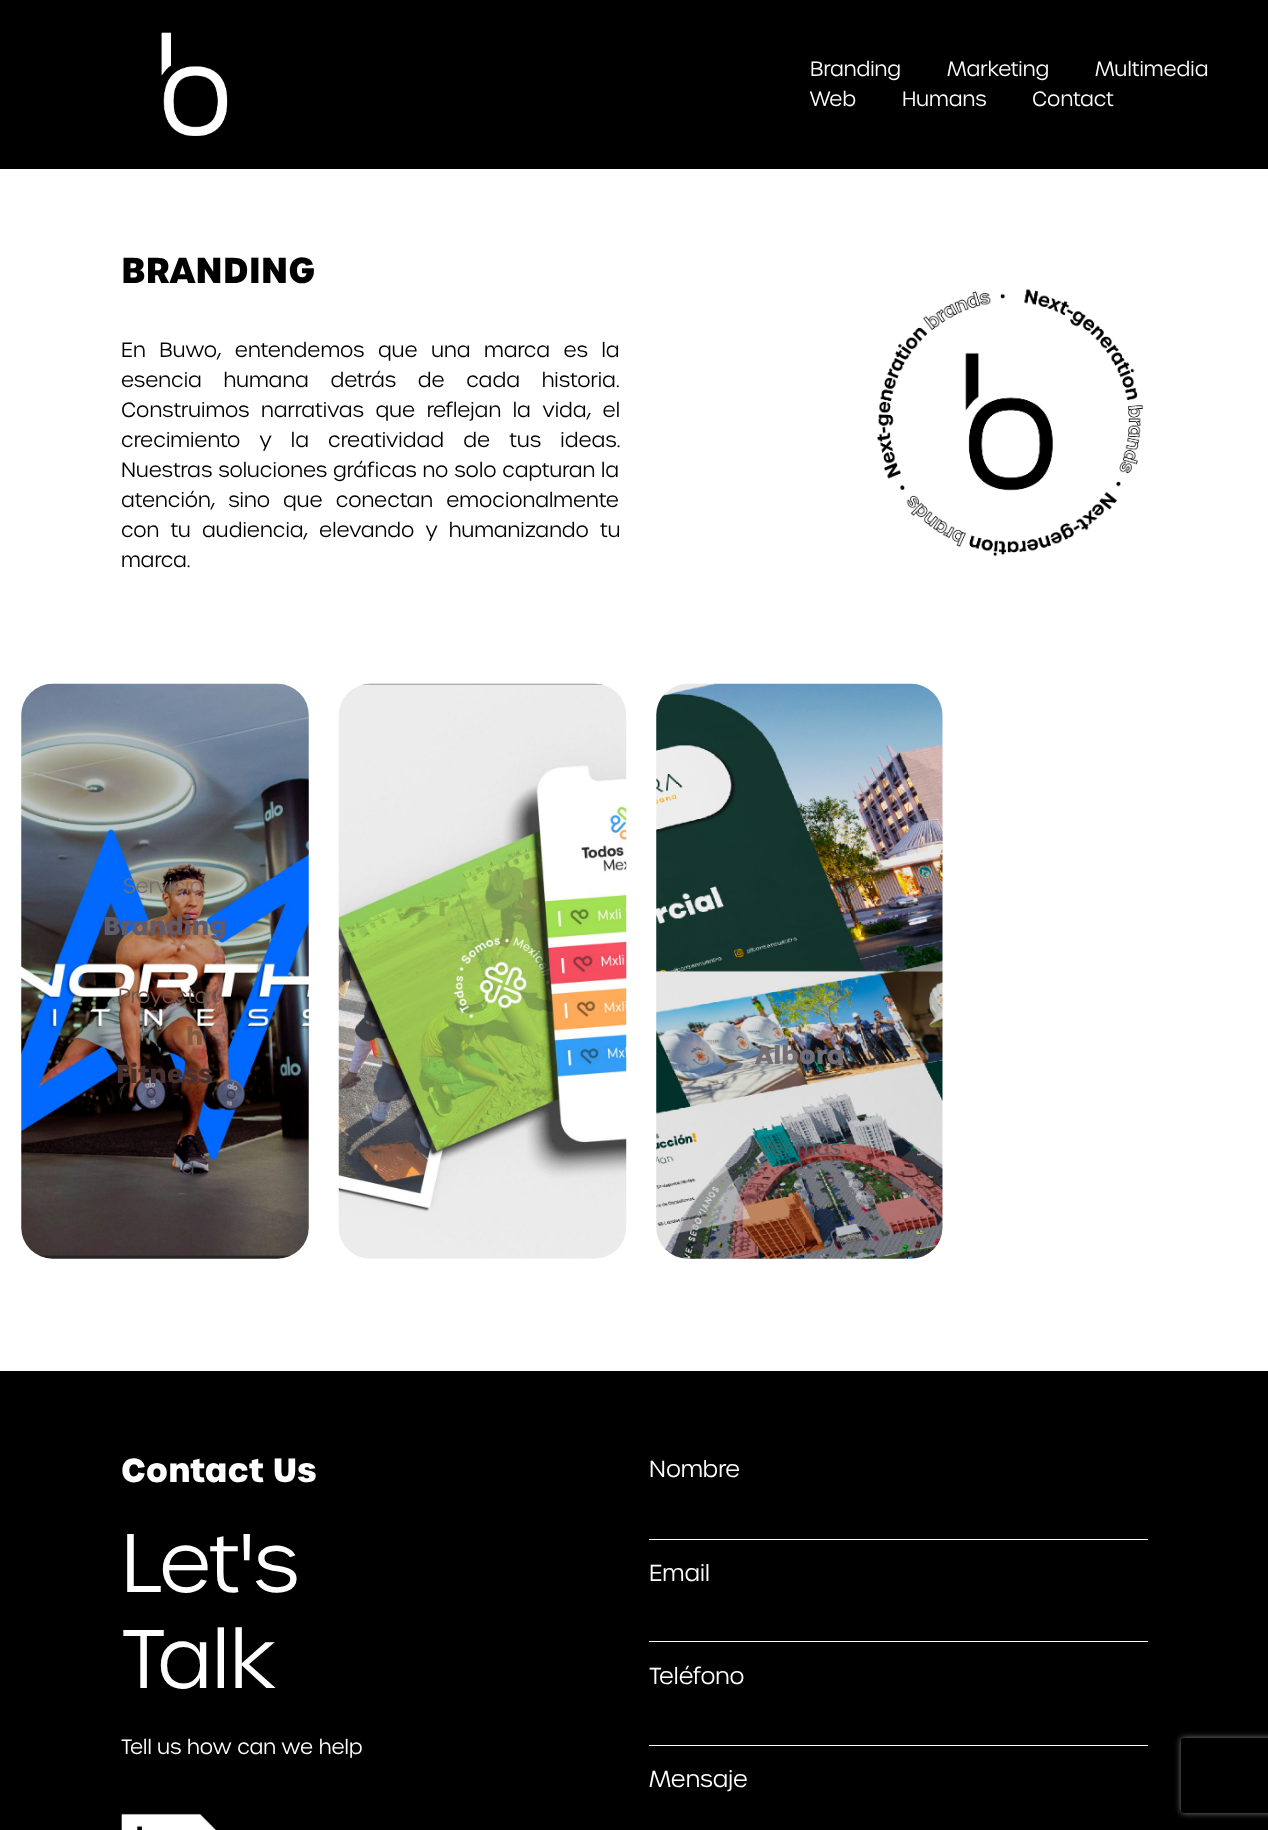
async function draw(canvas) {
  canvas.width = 1268;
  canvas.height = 1830;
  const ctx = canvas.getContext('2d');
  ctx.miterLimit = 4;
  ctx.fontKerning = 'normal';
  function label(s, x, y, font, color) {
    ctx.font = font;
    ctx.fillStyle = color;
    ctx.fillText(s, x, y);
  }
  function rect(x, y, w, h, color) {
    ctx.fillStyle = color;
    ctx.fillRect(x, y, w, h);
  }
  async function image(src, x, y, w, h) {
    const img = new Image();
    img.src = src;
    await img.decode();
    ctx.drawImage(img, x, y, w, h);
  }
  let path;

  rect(0, 0, 1268, 1830, '#fff');
  rect(0, 0, 1268, 169, '#000');
  await image('assets/img1.png', 161, 32, 67, 104);
  label('Branding', 810, 76, '300 20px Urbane', '#fff');
  label('Marketing', 947, 76, '300 20px Urbane', '#fff');
  label('Multimedia', 1095, 76, '300 20px Urbane', '#fff');
  label('Web', 810, 106, '300 20px Urbane', '#fff');
  label('Humans', 902, 106, '300 20px Urbane', '#fff');
  label('Contact', 1032, 106, '300 20px Urbane', '#fff');
  label('BRANDING', 121, 283, 'bold 35px Urbane', '#000');
  ctx.wordSpacing = '8px';
  label('En Buwo, entendemos que una marca es la', 121, 357, '300 20px Urbane', '#000');
  ctx.wordSpacing = '16px';
  label('esencia humana detrás de cada historia.', 121, 387, '300 20px Urbane', '#000');
  ctx.wordSpacing = '6px';
  label('Construimos narrativas que reflejan la vida, el', 121, 417, '300 20px Urbane', '#000');
  ctx.wordSpacing = '13.5px';
  label('crecimiento y la creatividad de tus ideas.', 121, 447, '300 20px Urbane', '#000');
  ctx.wordSpacing = '0.25px';
  label('Nuestras soluciones gráficas no solo capturan la', 121, 477, '300 20px Urbane', '#000');
  ctx.wordSpacing = '7.5px';
  label('atención, sino que conectan emocionalmente', 121, 507, '300 20px Urbane', '#000');
  ctx.wordSpacing = '5.5px';
  label('con tu audiencia, elevando y humanizando tu', 121, 537, '300 20px Urbane', '#000');
  ctx.wordSpacing = '0px';
  label('marca.', 121, 567, '300 20px Urbane', '#000');
  await image('assets/img2.png', 877, 289, 267, 267);
  await image('assets/img3.png', 21, 683, 288, 576);
  label('Servicio:', 123, 893, '300 20px Urbane', '#746f75');
  label('Branding', 103, 935, 'bold 25px Urbane', '#5e5b6e');
  label('Proyecto:', 118, 1003, '300 20px Urbane', '#715247');
  label('h', 186, 1045, 'bold 25px Urbane', '#855842');
  label('Fitness', 116, 1083, 'bold 25px Urbane', '#48302f');
  label('á', 181, 1174, '300 20px Urbane', '#4c4647');
  await image('assets/img4.png', 338, 683, 289, 576);
  label('r', 438, 916, 'bold 25px Urbane', '#8db052');
  await image('assets/img5.png', 656, 683, 287, 576);
  label(':', 842, 1021, '300 20px Urbane', '#759d94');
  label('Albora', 755, 1064, 'bold 25px Urbane', '#746f75');
  label('Ver más', 758, 1155, '300 20px Urbane', '#4c6165');
  rect(0, 1371, 1268, 459, '#000');
  label('Contact Us', 121, 1482, 'bold 32.5px Urbane', '#fff');
  label('Let\'s', 121, 1592, '300 80px Urbane', '#fff');
  label('Talk', 121, 1688, '300 80px Urbane', '#fff');
  label('Tell us how can we help', 121, 1754, '300 20px Urbane', '#fff');
  await image('assets/img6.png', 121, 1813, 95, 17);
  label('Nombre', 649, 1477, '300 22.5px Urbane', '#fff');
  rect(649, 1539, 499, 1, '#fff');
  label('Email', 649, 1581, '300 22.5px Urbane', '#fff');
  rect(649, 1641, 499, 1, '#fff');
  label('Teléfono', 649, 1684, '300 22.5px Urbane', '#fff');
  rect(649, 1745, 499, 1, '#fff');
  label('Mensaje', 649, 1787, '300 22.5px Urbane', '#fff');
  ctx.save();
  path = new Path2D('M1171 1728H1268V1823H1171ZM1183.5 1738H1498.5C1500 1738 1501 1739 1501 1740.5V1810.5C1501 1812 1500 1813 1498.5 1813H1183.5C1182 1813 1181 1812 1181 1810.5V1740.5C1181 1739 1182 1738 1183.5 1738Z');
  ctx.clip(path, 'evenodd');
  ctx.fillStyle = '#808080';
  ctx.filter = 'blur(3px)';
  ctx.beginPath();
  ctx.roundRect(1181, 1738, 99, 75, 2.5);
  ctx.fill();
  ctx.filter = 'none';
  ctx.restore();
}

draw(document.querySelector('canvas'));
